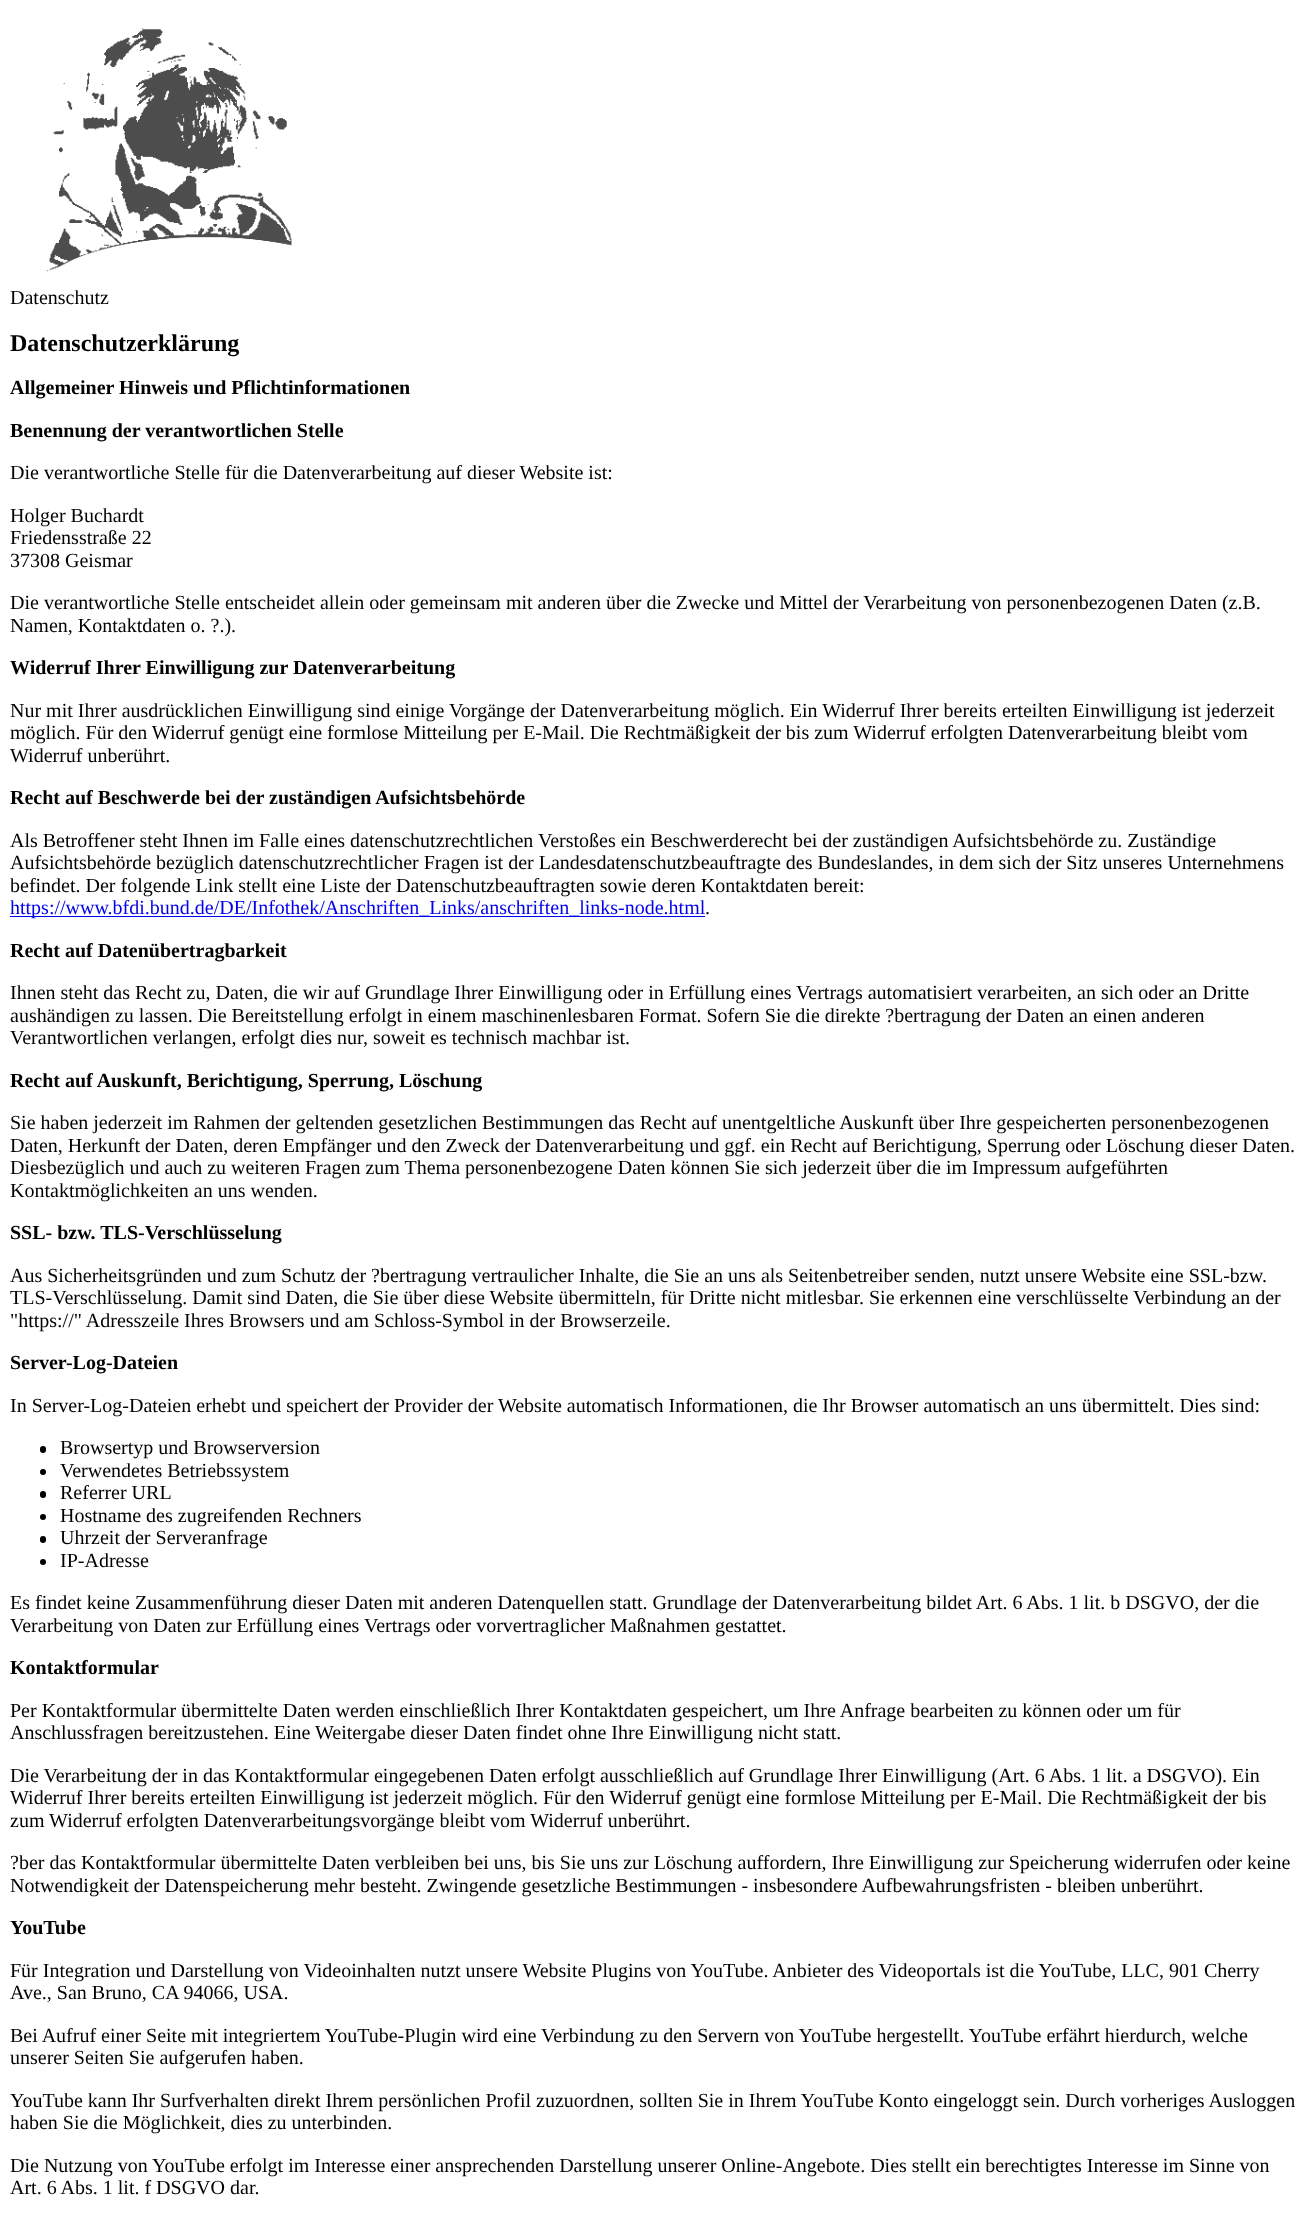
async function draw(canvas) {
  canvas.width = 1314;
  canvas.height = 2225;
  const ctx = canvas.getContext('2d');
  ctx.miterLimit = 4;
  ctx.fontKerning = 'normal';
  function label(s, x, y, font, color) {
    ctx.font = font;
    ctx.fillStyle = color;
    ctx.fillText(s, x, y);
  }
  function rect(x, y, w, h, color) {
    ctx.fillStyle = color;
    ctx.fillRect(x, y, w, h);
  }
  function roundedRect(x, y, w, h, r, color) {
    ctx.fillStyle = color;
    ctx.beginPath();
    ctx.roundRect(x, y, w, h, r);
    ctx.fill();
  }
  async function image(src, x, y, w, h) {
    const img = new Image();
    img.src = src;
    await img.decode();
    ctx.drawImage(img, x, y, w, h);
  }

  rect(0, 0, 1314, 2225, '#fff');
  await image('assets/img1.png', 46, 28, 247, 244);
  label('Datenschutz', 10, 304, '20px Liberation Serif', '#000');
  label('Datenschutzerklärung', 10, 351, 'bold 24px Liberation Serif', '#000');
  label('Allgemeiner Hinweis und Pflichtinformationen', 10, 394, 'bold 20px Liberation Serif', '#000');
  label('Benennung der verantwortlichen Stelle', 10, 437, 'bold 20px Liberation Serif', '#000');
  label('Die verantwortliche Stelle für die Datenverarbeitung auf dieser Website ist:', 10, 479, '20px Liberation Serif', '#000');
  label('Holger Buchardt', 10, 522, '20px Liberation Serif', '#000');
  label('Friedensstraße 22', 10, 544, '20px Liberation Serif', '#000');
  label('37308 Geismar', 10, 567, '20px Liberation Serif', '#000');
  label('Die verantwortliche Stelle entscheidet allein oder gemeinsam mit anderen über die Zwecke und Mittel der Verarbeitung von personenbezogenen Daten (z.B.', 10, 609, '20px Liberation Serif', '#000');
  label('Namen, Kontaktdaten o. ?.).', 10, 632, '20px Liberation Serif', '#000');
  label('Widerruf Ihrer Einwilligung zur Datenverarbeitung', 10, 674, 'bold 20px Liberation Serif', '#000');
  label('Nur mit Ihrer ausdrücklichen Einwilligung sind einige Vorgänge der Datenverarbeitung möglich. Ein Widerruf Ihrer bereits erteilten Einwilligung ist jederzeit', 10, 717, '20px Liberation Serif', '#000');
  label('möglich. Für den Widerruf genügt eine formlose Mitteilung per E-Mail. Die Rechtmäßigkeit der bis zum Widerruf erfolgten Datenverarbeitung bleibt vom', 10, 739, '20px Liberation Serif', '#000');
  label('Widerruf unberührt.', 10, 762, '20px Liberation Serif', '#000');
  label('Recht auf Beschwerde bei der zuständigen Aufsichtsbehörde', 10, 804, 'bold 20px Liberation Serif', '#000');
  label('Als Betroffener steht Ihnen im Falle eines datenschutzrechtlichen Verstoßes ein Beschwerderecht bei der zuständigen Aufsichtsbehörde zu. Zuständige', 10, 847, '20px Liberation Serif', '#000');
  label('Aufsichtsbehörde bezüglich datenschutzrechtlicher Fragen ist der Landesdatenschutzbeauftragte des Bundeslandes, in dem sich der Sitz unseres Unternehmens', 10, 869, '20px Liberation Serif', '#000');
  label('befindet. Der folgende Link stellt eine Liste der Datenschutzbeauftragten sowie deren Kontaktdaten bereit:', 10, 892, '20px Liberation Serif', '#000');
  rect(10, 916, 695, 1, '#00e');
  label('https://www.bfdi.bund.de/DE/Infothek/Anschriften_Links/anschriften_links-node.html', 10, 914, '20px Liberation Serif', '#00e');
  label('.', 705, 914, '20px Liberation Serif', '#000');
  label('Recht auf Datenübertragbarkeit', 10, 957, 'bold 20px Liberation Serif', '#000');
  label('Ihnen steht das Recht zu, Daten, die wir auf Grundlage Ihrer Einwilligung oder in Erfüllung eines Vertrags automatisiert verarbeiten, an sich oder an Dritte', 10, 999, '20px Liberation Serif', '#000');
  label('aushändigen zu lassen. Die Bereitstellung erfolgt in einem maschinenlesbaren Format. Sofern Sie die direkte ?bertragung der Daten an einen anderen', 10, 1022, '20px Liberation Serif', '#000');
  label('Verantwortlichen verlangen, erfolgt dies nur, soweit es technisch machbar ist.', 10, 1044, '20px Liberation Serif', '#000');
  label('Recht auf Auskunft, Berichtigung, Sperrung, Löschung', 10, 1087, 'bold 20px Liberation Serif', '#000');
  label('Sie haben jederzeit im Rahmen der geltenden gesetzlichen Bestimmungen das Recht auf unentgeltliche Auskunft über Ihre gespeicherten personenbezogenen', 10, 1129, '20px Liberation Serif', '#000');
  label('Daten, Herkunft der Daten, deren Empfänger und den Zweck der Datenverarbeitung und ggf. ein Recht auf Berichtigung, Sperrung oder Löschung dieser Daten.', 10, 1152, '20px Liberation Serif', '#000');
  label('Diesbezüglich und auch zu weiteren Fragen zum Thema personenbezogene Daten können Sie sich jederzeit über die im Impressum aufgeführten', 10, 1174, '20px Liberation Serif', '#000');
  label('Kontaktmöglichkeiten an uns wenden.', 10, 1197, '20px Liberation Serif', '#000');
  label('SSL- bzw. TLS-Verschlüsselung', 10, 1239, 'bold 20px Liberation Serif', '#000');
  label('Aus Sicherheitsgründen und zum Schutz der ?bertragung vertraulicher Inhalte, die Sie an uns als Seitenbetreiber senden, nutzt unsere Website eine SSL-bzw.', 10, 1282, '20px Liberation Serif', '#000');
  label('TLS-Verschlüsselung. Damit sind Daten, die Sie über diese Website übermitteln, für Dritte nicht mitlesbar. Sie erkennen eine verschlüsselte Verbindung an der', 10, 1304, '20px Liberation Serif', '#000');
  label('"https://" Adresszeile Ihres Browsers und am Schloss-Symbol in der Browserzeile.', 10, 1327, '20px Liberation Serif', '#000');
  label('Server-Log-Dateien', 10, 1369, 'bold 20px Liberation Serif', '#000');
  label('In Server-Log-Dateien erhebt und speichert der Provider der Website automatisch Informationen, die Ihr Browser automatisch an uns übermittelt. Dies sind:', 10, 1412, '20px Liberation Serif', '#000');
  roundedRect(40, 1446, 6, 7, 3, '#000');
  label('Browsertyp und Browserversion', 60, 1454, '20px Liberation Serif', '#000');
  ctx.beginPath();
  ctx.arc(43, 1472, 3, 0, 2 * Math.PI);
  ctx.fill();
  label('Verwendetes Betriebssystem', 60, 1477, '20px Liberation Serif', '#000');
  roundedRect(40, 1491, 6, 7, 3, '#000');
  label('Referrer URL', 60, 1499, '20px Liberation Serif', '#000');
  ctx.beginPath();
  ctx.arc(43, 1517, 3, 0, 2 * Math.PI);
  ctx.fill();
  label('Hostname des zugreifenden Rechners', 60, 1522, '20px Liberation Serif', '#000');
  roundedRect(40, 1536, 6, 7, 3, '#000');
  label('Uhrzeit der Serveranfrage', 60, 1544, '20px Liberation Serif', '#000');
  ctx.beginPath();
  ctx.arc(43, 1562, 3, 0, 2 * Math.PI);
  ctx.fill();
  label('IP-Adresse', 60, 1567, '20px Liberation Serif', '#000');
  label('Es findet keine Zusammenführung dieser Daten mit anderen Datenquellen statt. Grundlage der Datenverarbeitung bildet Art. 6 Abs. 1 lit. b DSGVO, der die', 10, 1609, '20px Liberation Serif', '#000');
  label('Verarbeitung von Daten zur Erfüllung eines Vertrags oder vorvertraglicher Maßnahmen gestattet.', 10, 1632, '20px Liberation Serif', '#000');
  label('Kontaktformular', 10, 1674, 'bold 20px Liberation Serif', '#000');
  label('Per Kontaktformular übermittelte Daten werden einschließlich Ihrer Kontaktdaten gespeichert, um Ihre Anfrage bearbeiten zu können oder um für', 10, 1717, '20px Liberation Serif', '#000');
  label('Anschlussfragen bereitzustehen. Eine Weitergabe dieser Daten findet ohne Ihre Einwilligung nicht statt.', 10, 1739, '20px Liberation Serif', '#000');
  label('Die Verarbeitung der in das Kontaktformular eingegebenen Daten erfolgt ausschließlich auf Grundlage Ihrer Einwilligung (Art. 6 Abs. 1 lit. a DSGVO). Ein', 10, 1782, '20px Liberation Serif', '#000');
  label('Widerruf Ihrer bereits erteilten Einwilligung ist jederzeit möglich. Für den Widerruf genügt eine formlose Mitteilung per E-Mail. Die Rechtmäßigkeit der bis', 10, 1804, '20px Liberation Serif', '#000');
  label('zum Widerruf erfolgten Datenverarbeitungsvorgänge bleibt vom Widerruf unberührt.', 10, 1827, '20px Liberation Serif', '#000');
  label('?ber das Kontaktformular übermittelte Daten verbleiben bei uns, bis Sie uns zur Löschung auffordern, Ihre Einwilligung zur Speicherung widerrufen oder keine', 10, 1869, '20px Liberation Serif', '#000');
  label('Notwendigkeit der Datenspeicherung mehr besteht. Zwingende gesetzliche Bestimmungen - insbesondere Aufbewahrungsfristen - bleiben unberührt.', 10, 1892, '20px Liberation Serif', '#000');
  label('YouTube', 10, 1934, 'bold 20px Liberation Serif', '#000');
  label('Für Integration und Darstellung von Videoinhalten nutzt unsere Website Plugins von YouTube. Anbieter des Videoportals ist die YouTube, LLC, 901 Cherry', 10, 1977, '20px Liberation Serif', '#000');
  label('Ave., San Bruno, CA 94066, USA.', 10, 1999, '20px Liberation Serif', '#000');
  label('Bei Aufruf einer Seite mit integriertem YouTube-Plugin wird eine Verbindung zu den Servern von YouTube hergestellt. YouTube erfährt hierdurch, welche', 10, 2042, '20px Liberation Serif', '#000');
  label('unserer Seiten Sie aufgerufen haben.', 10, 2064, '20px Liberation Serif', '#000');
  label('YouTube kann Ihr Surfverhalten direkt Ihrem persönlichen Profil zuzuordnen, sollten Sie in Ihrem YouTube Konto eingeloggt sein. Durch vorheriges Ausloggen', 10, 2107, '20px Liberation Serif', '#000');
  label('haben Sie die Möglichkeit, dies zu unterbinden.', 10, 2129, '20px Liberation Serif', '#000');
  label('Die Nutzung von YouTube erfolgt im Interesse einer ansprechenden Darstellung unserer Online-Angebote. Dies stellt ein berechtigtes Interesse im Sinne von', 10, 2172, '20px Liberation Serif', '#000');
  label('Art. 6 Abs. 1 lit. f DSGVO dar.', 10, 2194, '20px Liberation Serif', '#000');
}

draw(document.querySelector('canvas'));
